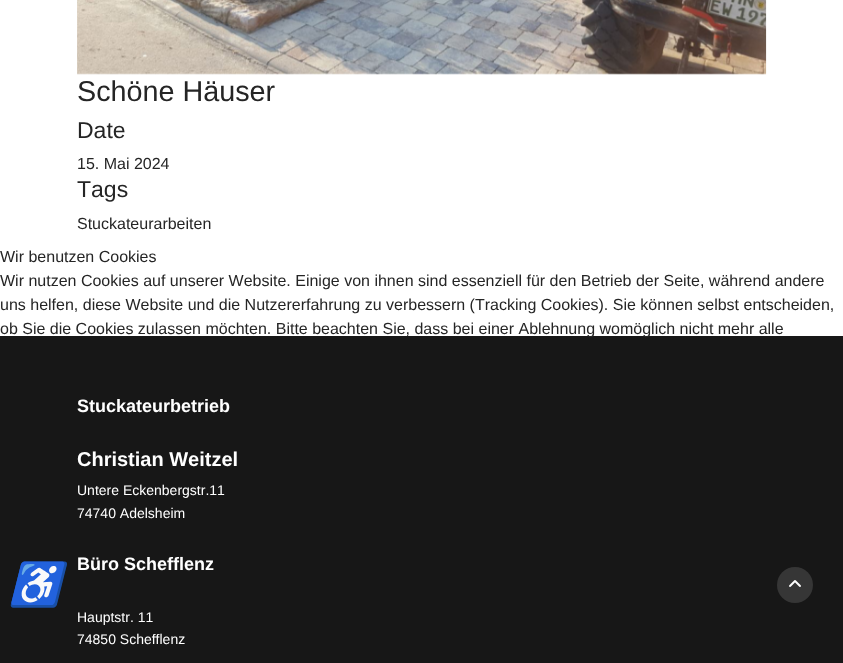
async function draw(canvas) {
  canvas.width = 843;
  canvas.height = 663;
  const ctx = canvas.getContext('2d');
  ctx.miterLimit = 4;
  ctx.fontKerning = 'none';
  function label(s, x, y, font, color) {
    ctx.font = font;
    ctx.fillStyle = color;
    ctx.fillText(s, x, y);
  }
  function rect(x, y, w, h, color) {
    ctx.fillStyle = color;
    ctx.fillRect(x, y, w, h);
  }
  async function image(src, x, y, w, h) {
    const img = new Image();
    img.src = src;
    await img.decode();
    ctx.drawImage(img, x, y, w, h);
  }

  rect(0, 0, 843, 663, '#fff');
  await image('assets/img1.png', 77, 0, 690, 75);
  label('Schöne Häuser', 77, 101, '28.75px Liberation Sans', '#252525');
  label('Date', 77, 138, '23px Liberation Sans', '#252525');
  label('15. Mai 2024', 77, 169, '16px Liberation Sans', '#252525');
  label('Tags', 77, 197, '23px Liberation Sans', '#252525');
  label('Stuckateurarbeiten', 77, 229, '16px Liberation Sans', '#252525');
  rect(0, 336, 843, 327, '#171717');
  label('Stuckateurbetrieb', 77, 412, 'bold 18px Liberation Sans', '#fff');
  label('Christian Weitzel', 77, 466, 'bold 20px Liberation Sans', '#fff');
  label('Untere Eckenbergstr.11', 77, 495, '14px Liberation Sans', '#fff');
  label('74740 Adelsheim', 77, 518, '14px Liberation Sans', '#fff');
  label('Büro Schefflenz', 77, 570, 'bold 18px Liberation Sans', '#fff');
  label('Hauptstr. 11', 77, 622, '14px Liberation Sans', '#fff');
  label('74850 Schefflenz', 77, 644, '14px Liberation Sans', '#fff');
  label('Wir benutzen Cookies', 0, 262, '16px Liberation Sans', '#252525');
  label('Wir nutzen Cookies auf unserer Website. Einige von ihnen sind essenziell für den Betrieb der Seite, während andere', 0, 286, '16px Liberation Sans', '#252525');
  label('uns helfen, diese Website und die Nutzererfahrung zu verbessern (Tracking Cookies). Sie können selbst entscheiden,', 0, 310, '16px Liberation Sans', '#252525');
  label('ob Sie die Cookies zulassen möchten. Bitte beachten Sie, dass bei einer Ablehnung womöglich nicht mehr alle', 0, 334, '16px Liberation Sans', '#252525');
  ctx.letterSpacing = '-3px';
  label('♿', 9, 599, 'italic 42px Noto Color Emoji', '#fff');
  ctx.fillStyle = '#363636';
  ctx.beginPath();
  ctx.arc(795, 585, 18, 0, 2 * Math.PI);
  ctx.fill();
  await image('assets/img2.png', 789, 580, 12, 7);
}

draw(document.querySelector('canvas'));
